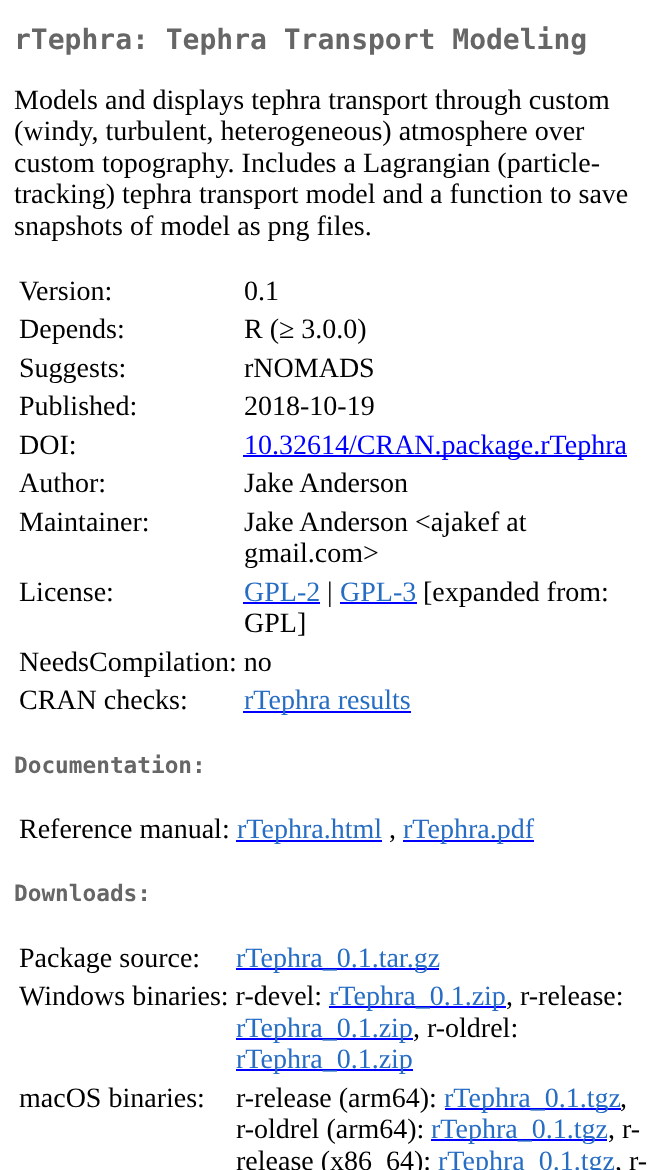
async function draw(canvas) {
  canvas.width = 668;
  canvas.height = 1170;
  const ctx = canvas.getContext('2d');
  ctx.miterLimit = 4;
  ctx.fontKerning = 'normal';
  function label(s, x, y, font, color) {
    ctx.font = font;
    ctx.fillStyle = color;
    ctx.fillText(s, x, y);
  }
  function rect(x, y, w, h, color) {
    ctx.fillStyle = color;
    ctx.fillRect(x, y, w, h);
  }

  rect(0, 0, 668, 1170, '#fff');
  label('rTephra: Tephra Transport Modeling', 14, 49, 'bold 28px DejaVu Sans Mono', '#666');
  label('Models and displays tephra transport through custom', 14, 109, '28px Liberation Serif', '#000');
  label('(windy, turbulent, heterogeneous) atmosphere over', 14, 140, '28px Liberation Serif', '#000');
  label('custom topography. Includes a Lagrangian (particle-', 14, 172, '28px Liberation Serif', '#000');
  label('tracking) tephra transport model and a function to save', 14, 203, '28px Liberation Serif', '#000');
  label('snapshots of model as png files.', 14, 235, '28px Liberation Serif', '#000');
  label('Version:', 19, 300, '28px Liberation Serif', '#000');
  label('0.1', 244, 300, '28px Liberation Serif', '#000');
  label('Depends:', 19, 338, '28px Liberation Serif', '#000');
  label('R (≥ 3.0.0)', 244, 338, '28px Liberation Serif', '#000');
  label('Suggests:', 19, 377, '28px Liberation Serif', '#000');
  label('rNOMADS', 244, 377, '28px Liberation Serif', '#000');
  label('Published:', 19, 415, '28px Liberation Serif', '#000');
  label('2018-10-19', 244, 415, '28px Liberation Serif', '#000');
  label('DOI:', 19, 454, '28px Liberation Serif', '#000');
  rect(243, 455, 384, 2, '#00f');
  label('10.32614/CRAN.package.rTephra', 244, 454, '28px Liberation Serif', '#00f');
  label('Author:', 19, 492, '28px Liberation Serif', '#000');
  label('Jake Anderson', 244, 492, '28px Liberation Serif', '#000');
  label('Maintainer:', 19, 531, '28px Liberation Serif', '#000');
  label('Jake Anderson <ajakef at', 244, 531, '28px Liberation Serif', '#000');
  label('gmail.com>', 244, 562, '28px Liberation Serif', '#000');
  label('License:', 19, 601, '28px Liberation Serif', '#000');
  label('GPL-2', 244, 601, '28px Liberation Serif', '#276dc3');
  rect(243, 602, 77, 2, '#00f');
  label('|', 327, 601, '28px Liberation Serif', '#000');
  label('GPL-3', 340, 601, '28px Liberation Serif', '#276dc3');
  rect(340, 602, 77, 2, '#00f');
  label('[expanded from:', 423, 601, '28px Liberation Serif', '#000');
  label('GPL]', 244, 632, '28px Liberation Serif', '#000');
  label('NeedsCompilation: no', 19, 671, '28px Liberation Serif', '#000');
  label('CRAN checks:', 19, 709, '28px Liberation Serif', '#000');
  rect(243, 711, 168, 2, '#00f');
  label('rTephra results', 244, 709, '28px Liberation Serif', '#276dc3');
  label('Documentation:', 14, 773, 'bold 22.75px DejaVu Sans Mono', '#666');
  label('Reference manual:', 19, 838, '28px Liberation Serif', '#000');
  rect(236, 840, 146, 2, '#00f');
  label('rTephra.html', 237, 838, '28px Liberation Serif', '#276dc3');
  label(',', 389, 838, '28px Liberation Serif', '#000');
  rect(403, 840, 131, 2, '#00f');
  label('rTephra.pdf', 403, 838, '28px Liberation Serif', '#276dc3');
  label('Downloads:', 14, 901, 'bold 22.75px DejaVu Sans Mono', '#666');
  label('Package source:', 19, 967, '28px Liberation Serif', '#000');
  rect(236, 968, 203, 2, '#00f');
  label('rTephra_0.1.tar.gz', 236, 967, '28px Liberation Serif', '#276dc3');
  label('Windows binaries: r-devel:', 19, 1005, '28px Liberation Serif', '#000');
  rect(329, 1006, 177, 2, '#00f');
  label('rTephra_0.1.zip', 329, 1005, '28px Liberation Serif', '#276dc3');
  label(', r-release:', 506, 1005, '28px Liberation Serif', '#000');
  rect(236, 1038, 177, 2, '#00f');
  label('rTephra_0.1.zip', 236, 1037, '28px Liberation Serif', '#276dc3');
  label(', r-oldrel:', 413, 1037, '28px Liberation Serif', '#000');
  rect(236, 1069, 177, 2, '#00f');
  label('rTephra_0.1.zip', 236, 1068, '28px Liberation Serif', '#276dc3');
  label('macOS binaries:', 19, 1107, '28px Liberation Serif', '#000');
  label('r-release (arm64):', 236, 1107, '28px Liberation Serif', '#000');
  rect(445, 1108, 176, 2, '#00f');
  label('rTephra_0.1.tgz', 444, 1107, '28px Liberation Serif', '#276dc3');
  label(',', 620, 1107, '28px Liberation Serif', '#000');
  label('r-oldrel (arm64):', 236, 1138, '28px Liberation Serif', '#000');
  rect(431, 1139, 176, 2, '#00f');
  label('rTephra_0.1.tgz', 431, 1138, '28px Liberation Serif', '#276dc3');
  rect(600, 1113, 1, 1, '#fff');
  label(', r-', 608, 1138, '28px Liberation Serif', '#000');
  label('release (x86_64):', 236, 1170, '28px Liberation Serif', '#000');
  label('rTephra_0.1.tgz', 438, 1170, '28px Liberation Serif', '#276dc3');
  label(', r-', 615, 1170, '28px Liberation Serif', '#000');
}

draw(document.querySelector('canvas'));
